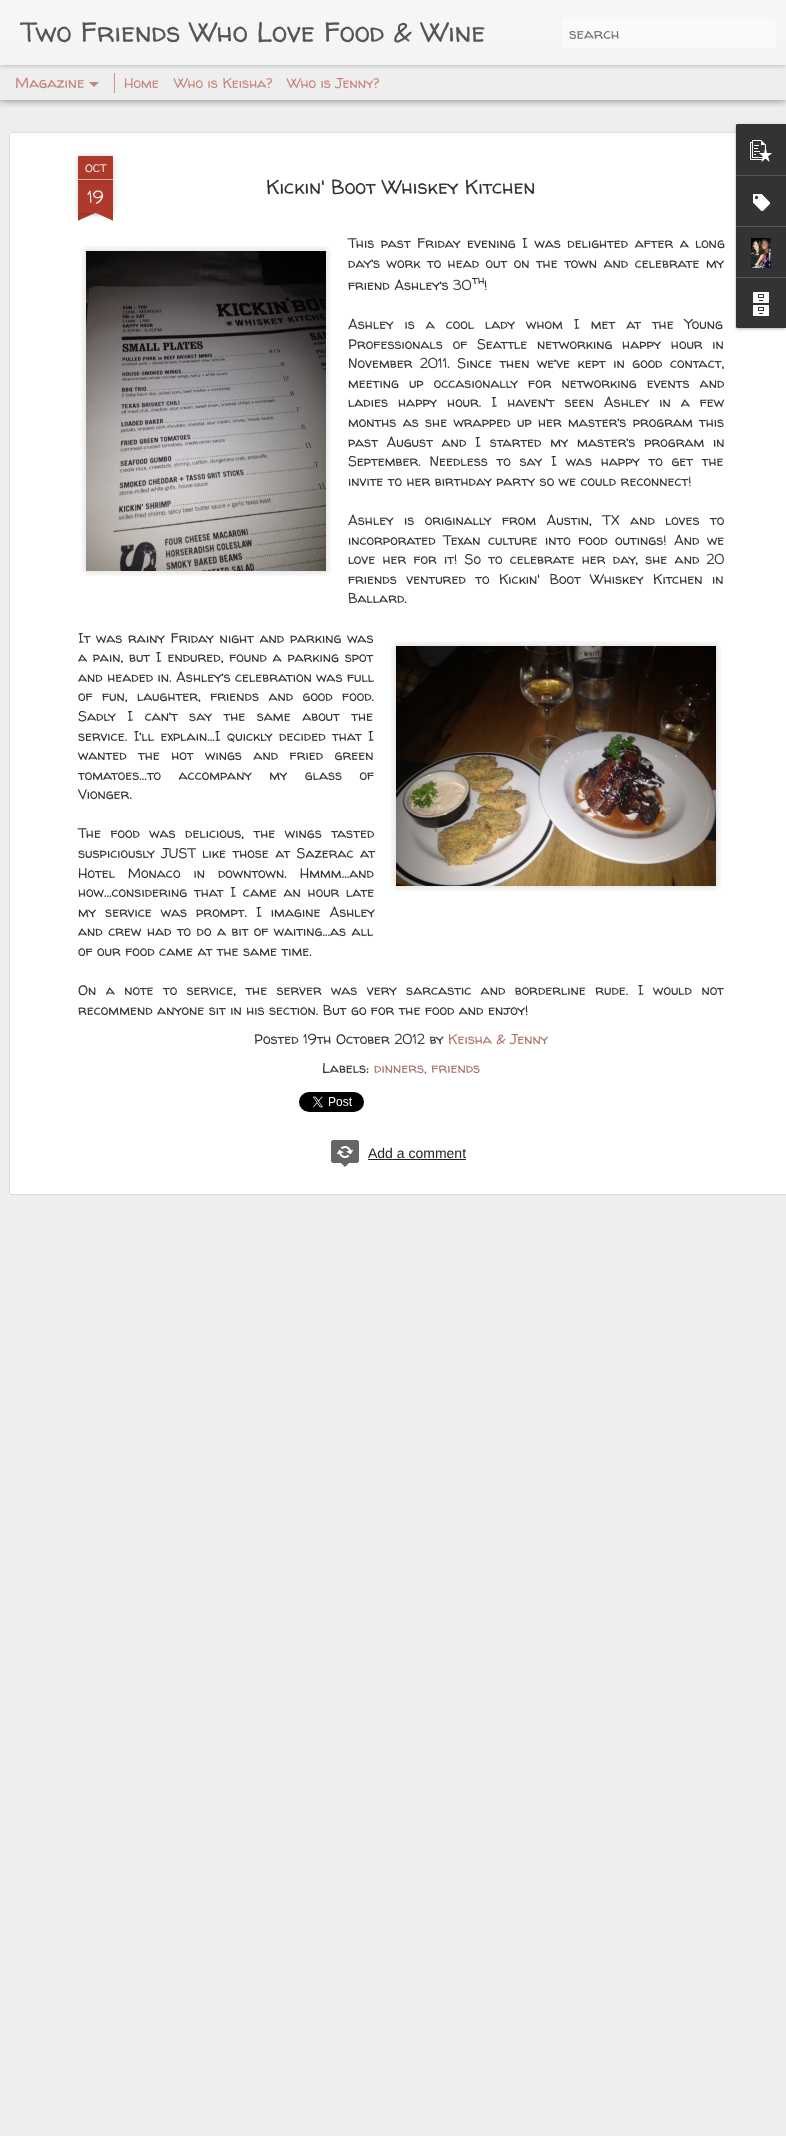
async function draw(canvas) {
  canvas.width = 786;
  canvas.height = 2136;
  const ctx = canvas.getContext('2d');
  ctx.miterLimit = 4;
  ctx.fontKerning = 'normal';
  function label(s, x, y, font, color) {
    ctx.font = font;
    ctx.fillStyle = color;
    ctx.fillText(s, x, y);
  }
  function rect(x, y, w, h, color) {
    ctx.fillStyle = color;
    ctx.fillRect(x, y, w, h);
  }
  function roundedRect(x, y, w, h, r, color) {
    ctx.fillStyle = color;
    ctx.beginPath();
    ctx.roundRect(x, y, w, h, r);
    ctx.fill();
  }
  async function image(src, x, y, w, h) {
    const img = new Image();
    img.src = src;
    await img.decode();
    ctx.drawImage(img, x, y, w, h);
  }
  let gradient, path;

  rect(0, 0, 786, 2136, '#eee');
  ctx.save();
  ctx.beginPath();
  ctx.rect(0, 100, 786, 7);
  ctx.clip();
  ctx.fillStyle = '#00000080';
  ctx.filter = 'blur(4px)';
  ctx.beginPath();
  ctx.rect(0, 65, 786, 35);
  ctx.fill();
  ctx.filter = 'none';
  ctx.restore();
  rect(114, 73, 1, 20, '#ce948d');
  ctx.fillStyle = '#0000004d';
  ctx.filter = 'blur(2.5px)';
  ctx.beginPath();
  ctx.rect(0, 0, 786, 65);
  ctx.fill();
  ctx.filter = 'none';
  gradient = ctx.createLinearGradient(0, 0, 0, 65);
  gradient.addColorStop(0, '#f7f7f7');
  gradient.addColorStop(1, '#f4f4f4');
  ctx.fillStyle = gradient;
  ctx.fillRect(0, 0, 786, 65);
  ctx.save();
  ctx.beginPath();
  ctx.rect(20, 0, 531, 65);
  ctx.clip();
  label('Two Friends Who Love Food & Wine', 20, 42, '28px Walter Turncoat', '#555');
  ctx.restore();
  roundedRect(562, 18, 214, 30, 3, '#fafafa');
  label('search', 569, 39, '15px Walter Turncoat', '#757575');
  label('Magazine', 15, 88, '15px Walter Turncoat', '#c78279');
  path = new Path2D('M89 82H99L94 87Z');
  ctx.fill(path);
  label('Home', 124, 88, '14px Walter Turncoat', '#c78279');
  label('Who is Keisha?', 174, 88, '14px Walter Turncoat', '#c78279');
  label('Who is Jenny?', 287, 88, '14px Walter Turncoat', '#c78279');
  rect(8, 131, 778, 1065, '#fff');
  await image('assets/img1.png', 8, 131, 778, 1065);
  ctx.fillStyle = '#00000033';
  ctx.filter = 'blur(2.5px)';
  ctx.beginPath();
  ctx.rect(78, 180, 35, 33);
  ctx.fill();
  ctx.filter = 'none';
  rect(78, 180, 35, 33, '#ad3a2b');
  ctx.fillStyle = '#00000033';
  ctx.filter = 'blur(2.5px)';
  ctx.beginPath();
  ctx.roundRect(78, 156, 35, 24, 1);
  ctx.fill();
  ctx.filter = 'none';
  ctx.fillStyle = '#ad3a2b';
  ctx.beginPath();
  ctx.roundRect(78, 156, 35, 24, [1, 1, 0, 0]);
  ctx.fill();
  rect(78, 179, 35, 1, '#deb0aa');
  label('OCT', 85, 172, '11px Walter Turncoat', '#eee');
  label('19', 87, 203, '17px Walter Turncoat', '#eee');
  ctx.save();
  ctx.beginPath();
  ctx.rect(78, 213, 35, 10);
  ctx.clip();
  ctx.fillStyle = '#00000033';
  ctx.filter = 'blur(2.5px)';
  ctx.beginPath();
  ctx.rect(69, 203, 50, 10);
  ctx.fill();
  ctx.filter = 'none';
  ctx.restore();
  ctx.save();
  ctx.beginPath();
  ctx.rect(78, 213, 35, 10);
  ctx.clip();
  ctx.fillStyle = '#ad3a2b';
  path = new Path2D('M69 214L115 193L119 202L73 223Z');
  ctx.fill(path);
  ctx.restore();
  ctx.save();
  ctx.beginPath();
  ctx.rect(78, 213, 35, 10);
  ctx.clip();
  ctx.fillStyle = '#00000033';
  ctx.filter = 'blur(2.5px)';
  ctx.beginPath();
  ctx.rect(72, 203, 50, 10);
  ctx.fill();
  ctx.filter = 'none';
  ctx.restore();
  ctx.save();
  ctx.beginPath();
  ctx.rect(78, 213, 35, 10);
  ctx.clip();
  ctx.fillStyle = '#ad3a2b';
  path = new Path2D('M76 193L122 214L118 223L72 202Z');
  ctx.fill(path);
  ctx.restore();
  label('Kickin\' Boot Whiskey Kitchen', 266, 194, '20px Walter Turncoat', '#333');
  ctx.wordSpacing = '2px';
  label('This past Friday evening I was delighted after a long', 348, 248, '14px Walter Turncoat', '#333');
  await image('assets/img2.png', 81, 246, 250, 330);
  label('day’s work to head out on the town and celebrate my', 348, 268, '14px Walter Turncoat', '#333');
  ctx.wordSpacing = '0px';
  label('friend Ashley’s 30', 348, 290, '14px Walter Turncoat', '#333');
  label('th', 472, 284, '12px Walter Turncoat', '#333');
  label('!', 484, 290, '14px Walter Turncoat', '#333');
  ctx.wordSpacing = '6.5px';
  label('Ashley is a cool lady whom I met at the Young', 348, 329, '14px Walter Turncoat', '#333');
  ctx.wordSpacing = '5.25px';
  label('Professionals of Seattle networking happy hour in', 348, 349, '14px Walter Turncoat', '#333');
  ctx.wordSpacing = '3px';
  label('November 2011. Since then we’ve kept in good contact,', 348, 368, '14px Walter Turncoat', '#333');
  ctx.wordSpacing = '5.5px';
  label('meeting up occasionally for networking events and', 348, 388, '14px Walter Turncoat', '#333');
  label('ladies happy hour. I haven’t seen Ashley in a few', 348, 407, '14px Walter Turncoat', '#333');
  ctx.wordSpacing = '1.75px';
  label('months as she wrapped up her master’s program this', 348, 427, '14px Walter Turncoat', '#333');
  ctx.wordSpacing = '4.25px';
  label('past August and I started my master’s program in', 348, 447, '14px Walter Turncoat', '#333');
  label('September. Needless to say I was happy to get the', 348, 466, '14px Walter Turncoat', '#333');
  ctx.wordSpacing = '0px';
  label('invite to her birthday party so we could reconnect!', 348, 486, '14px Walter Turncoat', '#333');
  ctx.wordSpacing = '6px';
  label('Ashley is originally from Austin, TX and loves to', 348, 525, '14px Walter Turncoat', '#333');
  ctx.wordSpacing = '3px';
  label('incorporated Texan culture into food outings! And we', 348, 545, '14px Walter Turncoat', '#333');
  ctx.wordSpacing = '2.75px';
  label('love her for it! So to celebrate her day, she and 20', 348, 564, '14px Walter Turncoat', '#333');
  ctx.wordSpacing = '5px';
  label('friends ventured to Kickin\' Boot Whiskey Kitchen in', 348, 584, '14px Walter Turncoat', '#333');
  ctx.wordSpacing = '0px';
  label('Ballard.', 348, 603, '14px Walter Turncoat', '#333');
  ctx.wordSpacing = '1.25px';
  label('It was rainy Friday night and parking was', 78, 643, '14px Walter Turncoat', '#333');
  label('a pain, but I endured, found a parking spot', 78, 662, '14px Walter Turncoat', '#333');
  await image('assets/img3.png', 391, 641, 330, 250);
  ctx.wordSpacing = '0px';
  label('and headed in. Ashley’s celebration was full', 78, 682, '14px Walter Turncoat', '#333');
  ctx.wordSpacing = '4.9px';
  label('of fun, laughter, friends and good food.', 78, 701, '14px Walter Turncoat', '#333');
  ctx.wordSpacing = '7px';
  label('Sadly I can’t say the same about the', 78, 721, '14px Walter Turncoat', '#333');
  ctx.wordSpacing = '2px';
  label('service. I’ll explain…I quickly decided that I', 78, 741, '14px Walter Turncoat', '#333');
  ctx.wordSpacing = '7px';
  label('wanted the hot wings and fried green', 78, 760, '14px Walter Turncoat', '#333');
  ctx.wordSpacing = '13px';
  label('tomatoes…to accompany my glass of', 78, 780, '14px Walter Turncoat', '#333');
  ctx.wordSpacing = '0px';
  label('Vionger.', 78, 799, '14px Walter Turncoat', '#333');
  ctx.wordSpacing = '5px';
  label('The food was delicious, the wings tasted', 78, 838, '14px Walter Turncoat', '#333');
  ctx.wordSpacing = '2px';
  label('suspiciously JUST like those at Sazerac at', 78, 858, '14px Walter Turncoat', '#333');
  ctx.wordSpacing = '8.5px';
  label('Hotel Monaco in downtown. Hmmm…and', 78, 878, '14px Walter Turncoat', '#333');
  ctx.wordSpacing = '2.25px';
  label('how…considering that I came an hour late', 78, 897, '14px Walter Turncoat', '#333');
  ctx.wordSpacing = '4.5px';
  label('my service was prompt. I imagine Ashley', 78, 917, '14px Walter Turncoat', '#333');
  ctx.wordSpacing = '1px';
  label('and crew had to do a bit of waiting…as all', 78, 936, '14px Walter Turncoat', '#333');
  ctx.wordSpacing = '0px';
  label('of our food came at the same time.', 78, 956, '14px Walter Turncoat', '#333');
  ctx.wordSpacing = '4.9px';
  label('On a note to service, the server was very sarcastic and borderline rude. I would not', 78, 995, '14px Walter Turncoat', '#333');
  ctx.wordSpacing = '0px';
  label('recommend anyone sit in his section. But go for the food and enjoy!', 78, 1015, '14px Walter Turncoat', '#333');
  label('Posted 19th October 2012 by', 254, 1044, '14px Walter Turncoat', '#333');
  label('Keisha & Jenny', 448, 1044, '14px Walter Turncoat', '#ad736c');
  label('Labels:', 322, 1073, '14px Walter Turncoat', '#333');
  label('dinners, friends', 374, 1073, '14px Walter Turncoat', '#ad736c');
  await image('assets/img4.png', 299, 1092, 65, 20);
  roundedRect(331, 1140, 28, 23, 3, '#666');
  await image('assets/img5.png', 337, 1146, 16, 12);
  ctx.beginPath();
  ctx.roundRect(331.5, 1140.5, 27, 22, 2.5);
  ctx.strokeStyle = '#666';
  ctx.stroke();
  path = new Path2D('M340 1162H350L345 1167Z');
  ctx.fill(path);
  label('Add a comment', 368, 1158, '14px Liberation Sans', '#222');
  rect(368, 1159, 98, 1, '#222');
  ctx.fillStyle = '#0000004d';
  ctx.filter = 'blur(1.5px)';
  ctx.beginPath();
  ctx.roundRect(736, 125, 50, 204, 2);
  ctx.fill();
  ctx.filter = 'none';
  ctx.fillStyle = '#333';
  ctx.beginPath();
  ctx.roundRect(736, 124, 50, 204, [2, 0, 0, 2]);
  ctx.fill();
  ctx.beginPath();
  ctx.roundRect(736, 124, 50, 51, [2, 0, 0, 0]);
  ctx.fill();
  await image('assets/img6.png', 750, 140, 22, 22);
  rect(736, 175, 50, 1, '#585858');
  await image('assets/img7.png', 753, 194, 17, 17);
  rect(736, 226, 50, 1, '#585858');
  await image('assets/img8.png', 751, 238, 20, 30);
  ctx.fillStyle = '#333';
  ctx.beginPath();
  ctx.roundRect(736, 277, 50, 51, [0, 0, 0, 2]);
  ctx.fill();
  rect(736, 277, 50, 1, '#585858');
  await image('assets/img9.png', 753, 292, 16, 24);
}

draw(document.querySelector('canvas'));
